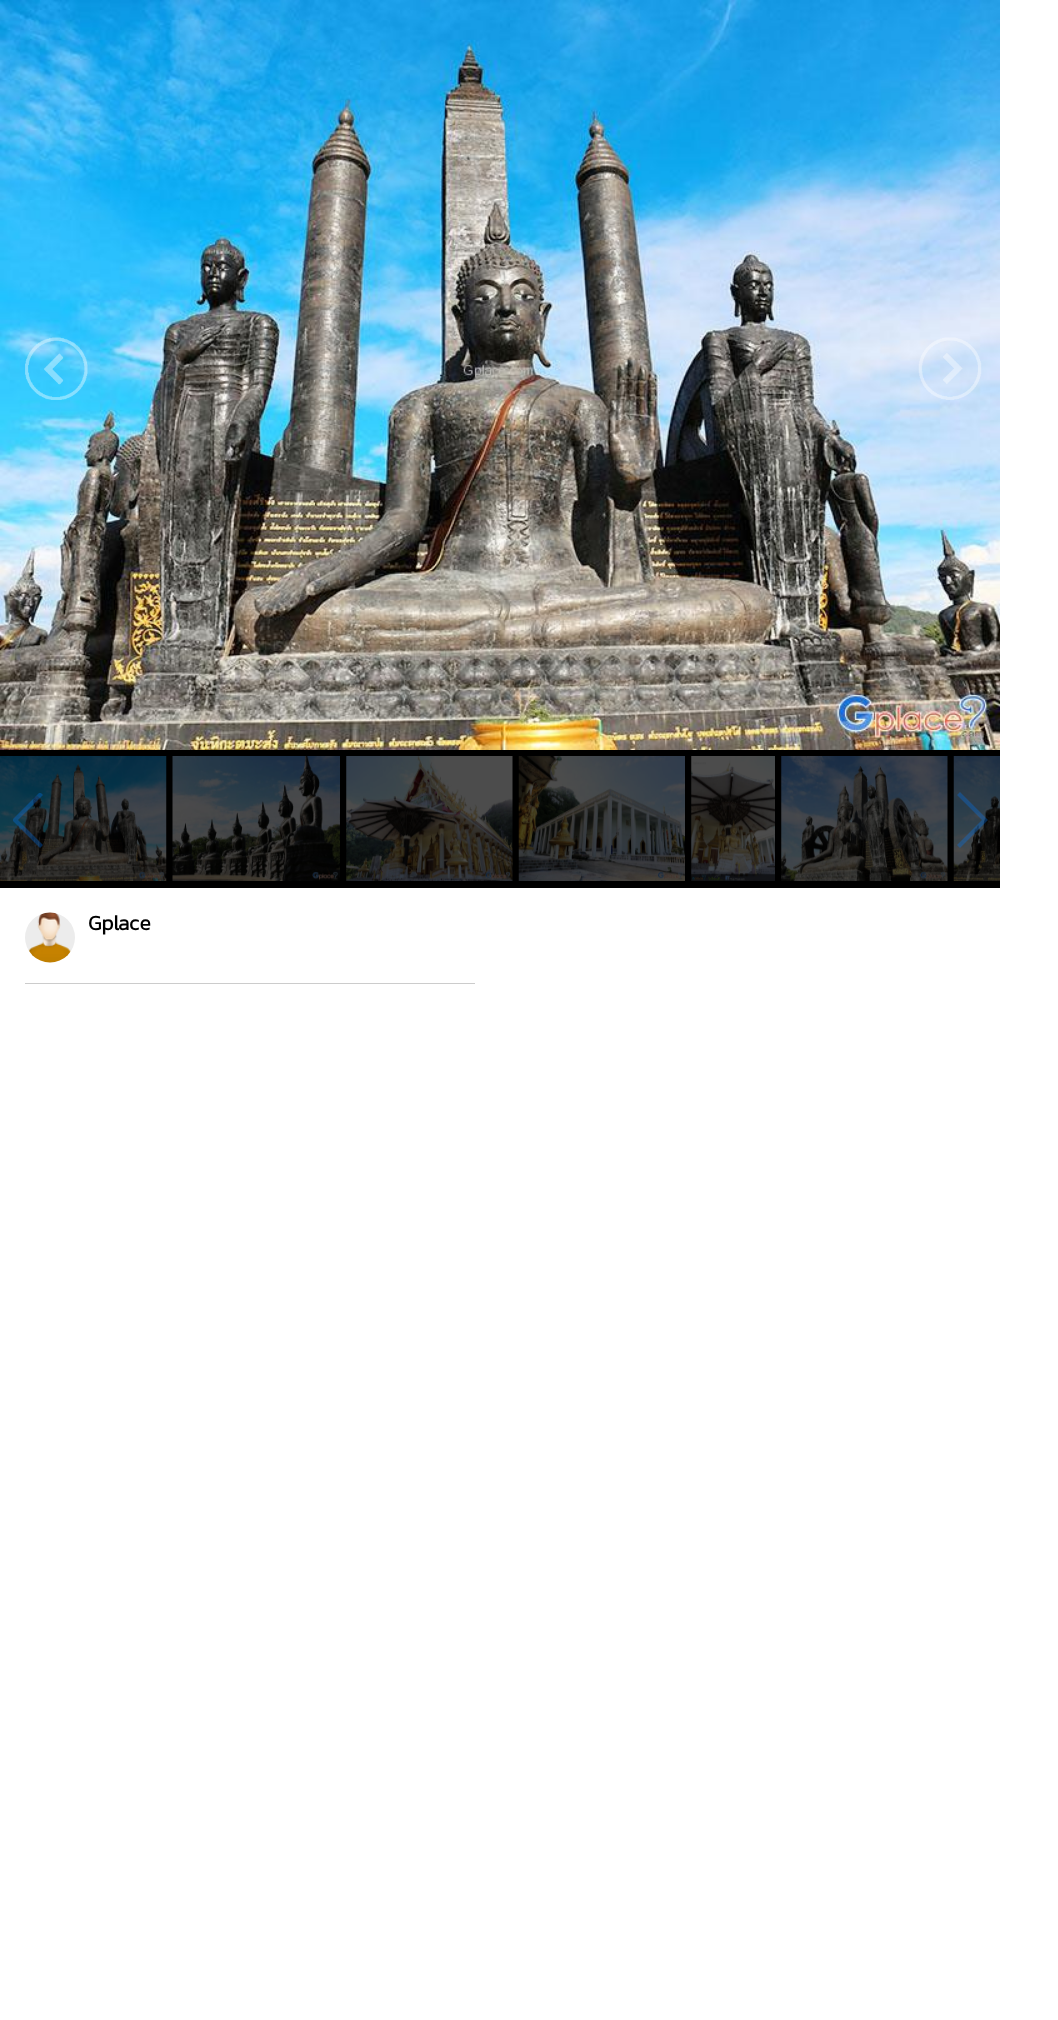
async function draw(canvas) {
  canvas.width = 1058;
  canvas.height = 2020;
  const ctx = canvas.getContext('2d');
  ctx.miterLimit = 4;
  ctx.fontKerning = 'normal';
  function label(s, x, y, font, color) {
    ctx.font = font;
    ctx.fillStyle = color;
    ctx.fillText(s, x, y);
  }
  function rect(x, y, w, h, color) {
    ctx.fillStyle = color;
    ctx.fillRect(x, y, w, h);
  }
  async function image(src, x, y, w, h) {
    const img = new Image();
    img.src = src;
    await img.decode();
    ctx.drawImage(img, x, y, w, h);
  }
  let path;

  rect(0, 0, 1058, 2020, '#fff');
  rect(0, 750, 1000, 138, '#000');
  await image('assets/img1.png', 0, 0, 1000, 750);
  await image('assets/img2.png', 25, 337, 63, 63);
  await image('assets/img3.png', 918, 337, 64, 63);
  await image('assets/img4.png', 0, 756, 167, 125);
  await image('assets/img5.png', 172, 756, 168, 125);
  await image('assets/img6.png', 346, 756, 167, 125);
  await image('assets/img7.png', 518, 756, 167, 125);
  await image('assets/img8.png', 691, 756, 84, 125);
  await image('assets/img9.png', 781, 756, 167, 125);
  await image('assets/img10.png', 953, 756, 47, 125);
  ctx.save();
  ctx.beginPath();
  ctx.rect(13, 793, 33, 55);
  ctx.clip();
  ctx.fillStyle = '#007aff4d';
  path = new Path2D('M12 820L40 792L43 795L18 820L43 845L40 848Z');
  ctx.fill(path);
  ctx.restore();
  ctx.fillStyle = '#007aff4d';
  path = new Path2D('M988 820L960 848L957 845L982 820L957 795L960 792Z');
  ctx.fill(path);
  await image('assets/img11.png', 25, 912, 50, 51);
  label('Gplace', 88, 930, 'bold 21px Kanit', '#000');
  rect(25, 983, 450, 1, '#ccc');
}

draw(document.querySelector('canvas'));
